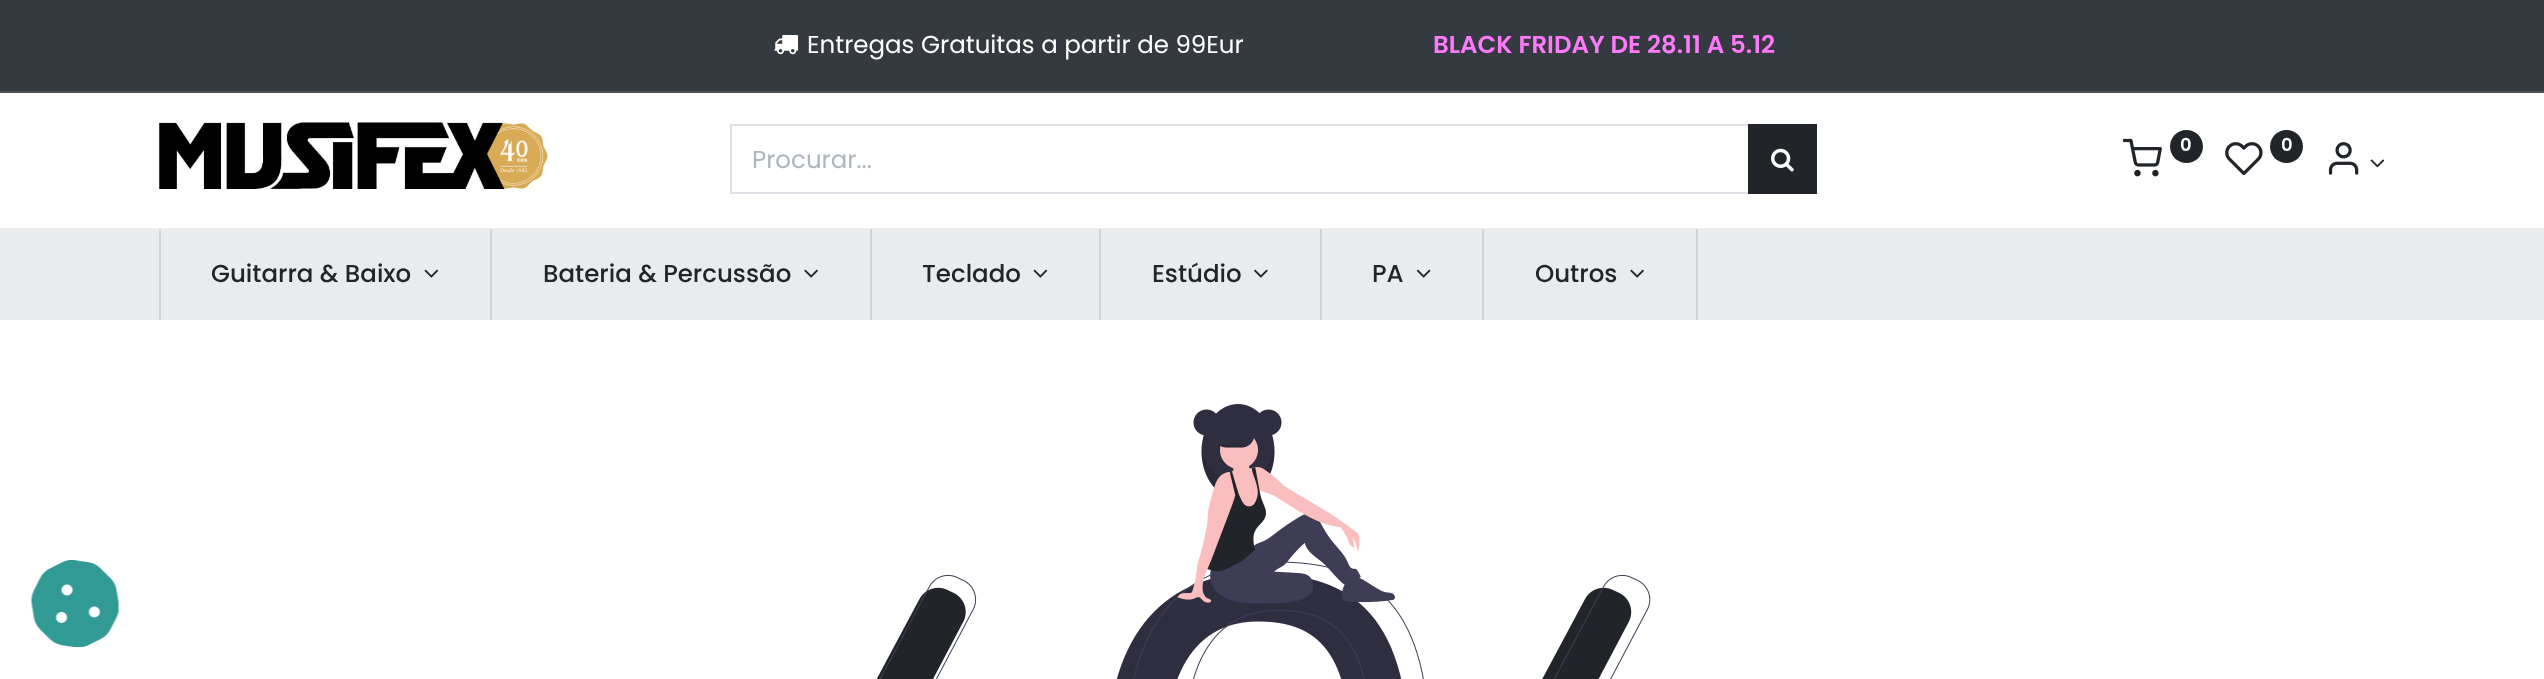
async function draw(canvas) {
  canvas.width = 2544;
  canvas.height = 679;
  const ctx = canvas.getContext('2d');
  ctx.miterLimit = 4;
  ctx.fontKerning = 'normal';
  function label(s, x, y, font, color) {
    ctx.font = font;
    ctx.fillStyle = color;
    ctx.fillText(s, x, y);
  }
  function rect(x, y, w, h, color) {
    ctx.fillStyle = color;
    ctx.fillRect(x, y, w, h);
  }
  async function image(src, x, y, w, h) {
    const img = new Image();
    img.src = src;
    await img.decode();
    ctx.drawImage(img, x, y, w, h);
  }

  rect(0, 0, 2544, 679, '#fff');
  rect(0, 0, 2544, 91, '#343a40');
  rect(0, 91, 2544, 2, '#4c5257');
  await image('assets/img1.png', 774, 35, 24, 20);
  label('Entregas Gratuitas a partir de 99Eur', 807, 53, '24.5px Poppins', '#fff');
  label('BLACK FRIDAY DE 28.11 A 5.12', 1433, 53, '600 24.5px Poppins', '#ff7afb');
  rect(0, 228, 2544, 1, '#edeeef');
  await image('assets/img2.png', 159, 122, 389, 67);
  await image('assets/img3.png', 2122, 138, 40, 39);
  ctx.fillStyle = '#212529';
  ctx.beginPath();
  ctx.arc(2186.5, 146.5, 16.5, 0, 2 * Math.PI);
  ctx.fill();
  label('0', 2180, 151, '600 18px Poppins', '#fff');
  await image('assets/img4.png', 2225, 142, 38, 34);
  ctx.fillStyle = '#212529';
  ctx.beginPath();
  ctx.arc(2286.5, 146.5, 16.5, 0, 2 * Math.PI);
  ctx.fill();
  label('0', 2281, 151, '600 18px Poppins', '#fff');
  await image('assets/img5.png', 2328, 142, 31, 33);
  await image('assets/img6.png', 2370, 159, 15, 9);
  ctx.strokeStyle = '#dee2e6';
  ctx.lineWidth = 2;
  ctx.strokeRect(731, 125, 1018, 68);
  label('Procurar...', 752, 168, '24.5px Poppins', '#adb5bd');
  rect(1748, 124, 69, 70, '#212529');
  await image('assets/img7.png', 1771, 148, 23, 24);
  rect(0, 229, 2544, 91, '#e9ecef');
  rect(159, 229, 2, 91, '#d1d4d7');
  label('Guitarra & Baixo', 211, 282, '500 24.5px Poppins', '#212529');
  await image('assets/img8.png', 424, 269, 15, 9);
  rect(490, 229, 2, 91, '#d1d4d7');
  label('Bateria & Percussão', 543, 282, '500 24.5px Poppins', '#212529');
  await image('assets/img9.png', 804, 269, 14, 9);
  rect(870, 229, 2, 91, '#d1d4d7');
  label('Teclado', 922, 282, '500 24.5px Poppins', '#212529');
  await image('assets/img8.png', 1033, 269, 15, 9);
  rect(1099, 229, 2, 91, '#d1d4d7');
  label('Estúdio', 1152, 282, '500 24.5px Poppins', '#212529');
  await image('assets/img10.png', 1254, 269, 14, 9);
  rect(1320, 229, 2, 91, '#d1d4d7');
  label('PA', 1372, 282, '500 24.5px Poppins', '#212529');
  await image('assets/img11.png', 1416, 269, 15, 9);
  rect(1696, 229, 2, 91, '#d1d4d7');
  rect(1482, 229, 2, 91, '#d1d4d7');
  label('Outros', 1535, 282, '500 24.5px Poppins', '#212529');
  await image('assets/img9.png', 1630, 269, 14, 9);
  await image('assets/img12.png', 31, 560, 89, 88);
  await image('assets/img13.png', 876, 404, 775, 275);
}

draw(document.querySelector('canvas'));
